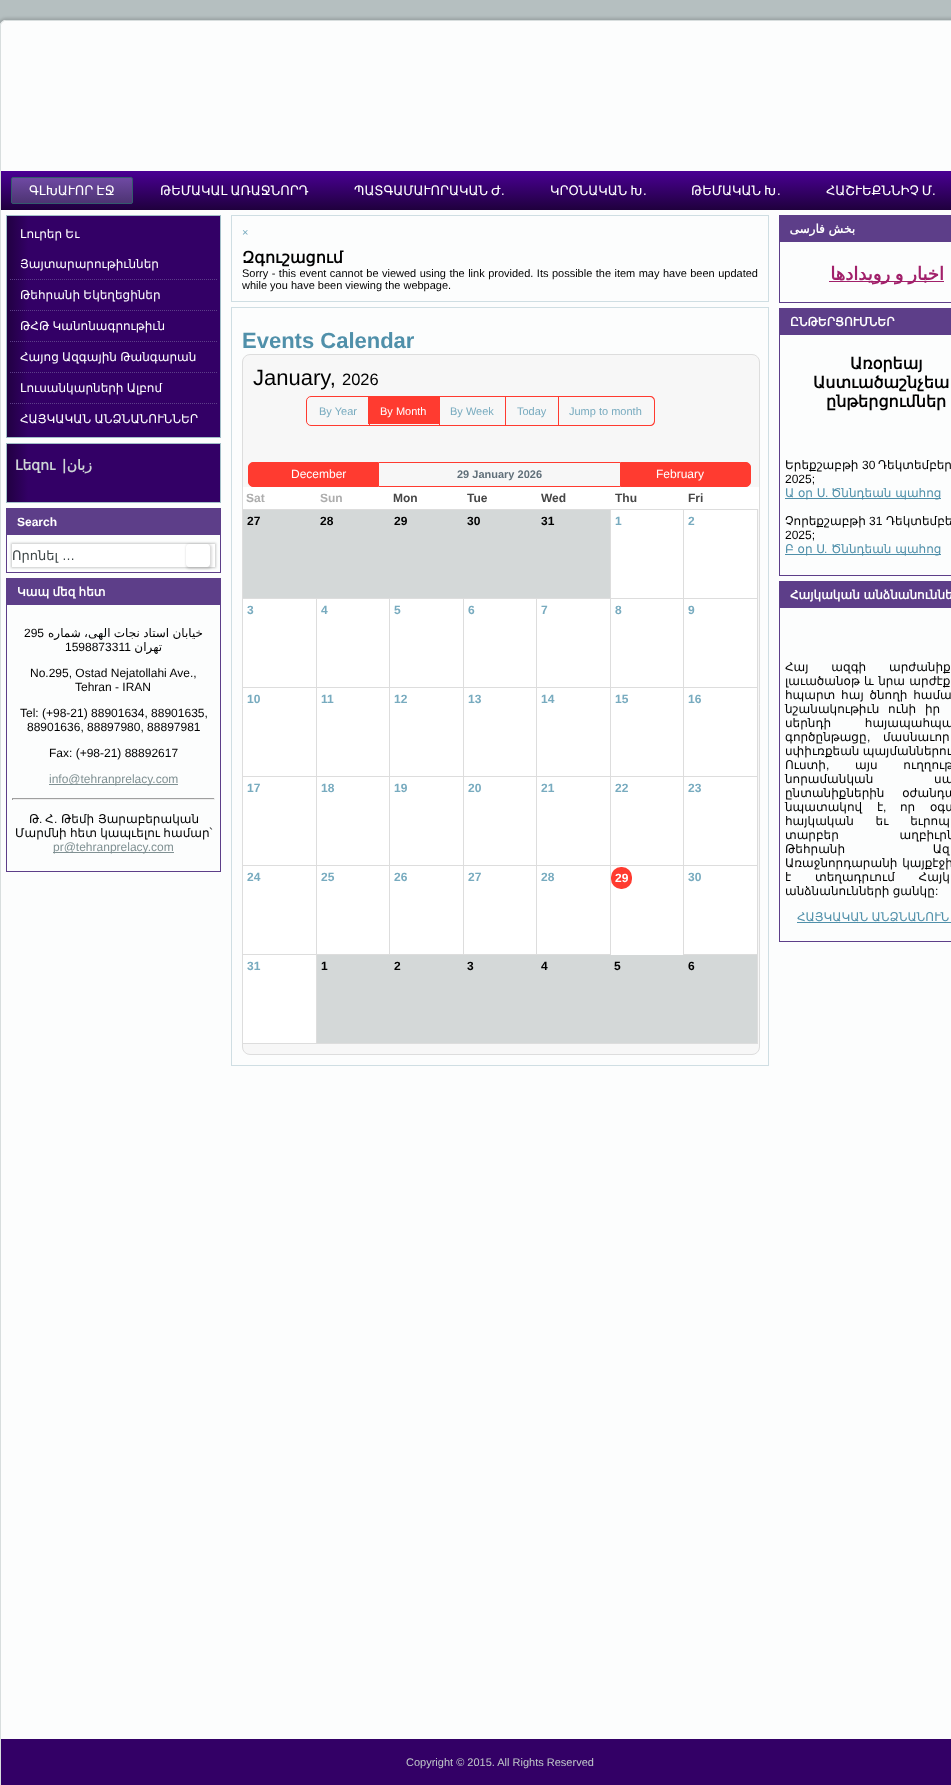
async function draw(canvas) {
  canvas.width = 951;
  canvas.height = 1785;
  const ctx = canvas.getContext('2d');
  ctx.miterLimit = 4;
  ctx.fontKerning = 'normal';
  function label(s, x, y, font, color) {
    ctx.font = font;
    ctx.fillStyle = color;
    ctx.fillText(s, x, y);
  }
  function rect(x, y, w, h, color) {
    ctx.fillStyle = color;
    ctx.fillRect(x, y, w, h);
  }
  function roundedRect(x, y, w, h, r, color) {
    ctx.fillStyle = color;
    ctx.beginPath();
    ctx.roundRect(x, y, w, h, r);
    ctx.fill();
  }
  let gradient, path;

  rect(0, 0, 951, 1785, '#b5bfc0');
  ctx.fillStyle = '#00000026';
  ctx.filter = 'blur(1.5px)';
  ctx.beginPath();
  ctx.roundRect(-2, 18, 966, 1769, 8);
  ctx.fill();
  ctx.filter = 'none';
  ctx.fillStyle = '#fcfdfd';
  path = new Path2D('M6 20H951C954.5 20 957 22.5 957 26V1785H0V26C0 22.5 2.5 20 6 20Z');
  ctx.fill(path);
  ctx.fillStyle = '#d8dede';
  path = new Path2D('M6 20H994C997 20 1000 23 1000 26V1785H0V26C0 23 3 20 6 20ZM6 21H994C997 21 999 23 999 26V1785H1V26C1 23 3 21 6 21Z');
  ctx.fill(path, 'evenodd');
  gradient = ctx.createLinearGradient(500, 171, 500, 210);
  gradient.addColorStop(0, '#4a0094');
  gradient.addColorStop(1, '#1f003d');
  ctx.fillStyle = gradient;
  ctx.fillRect(1, 171, 950, 39);
  gradient = ctx.createLinearGradient(72, 177, 72, 204);
  gradient.addColorStop(0, '#704aa5');
  gradient.addColorStop(1, '#4c3371');
  ctx.fillStyle = gradient;
  ctx.beginPath();
  ctx.roundRect(11.5, 177.5, 121, 26, 1.5);
  ctx.fill();
  ctx.strokeStyle = '#335b6c';
  ctx.stroke();
  ctx.wordSpacing = '-1px';
  label('ԳԼԽԱՒՈՐ ԷՋ', 29, 195, '13px DejaVu Sans', '#fff');
  label('ԹԵՄԱԿԱԼ ԱՌԱՋՆՈՐԴ', 160, 195, '13px DejaVu Sans', '#fff');
  label('ՊԱՏԳԱՄԱՒՈՐԱԿԱՆ Ժ', 354, 195, '13px DejaVu Sans', '#fff');
  ctx.wordSpacing = '0px';
  label('.', 501, 195, '13px Liberation Sans', '#fff');
  ctx.wordSpacing = '-1px';
  label('ԿՐՕՆԱԿԱՆ Խ', 550, 195, '13px DejaVu Sans', '#fff');
  ctx.wordSpacing = '0px';
  label('.', 643, 195, '13px Liberation Sans', '#fff');
  ctx.wordSpacing = '-1px';
  label('ԹԵՄԱԿԱՆ Խ', 691, 195, '13px DejaVu Sans', '#fff');
  ctx.wordSpacing = '0px';
  label('.', 777, 195, '13px Liberation Sans', '#fff');
  ctx.wordSpacing = '-1px';
  label('ՀԱՇՒԵՔՆՆԻՉ Մ', 826, 195, '13px DejaVu Sans', '#fff');
  ctx.wordSpacing = '0px';
  label('.', 932, 195, '13px Liberation Sans', '#fff');
  gradient = ctx.createLinearGradient(7, 327, 220, 327);
  gradient.addColorStop(0, '#210042');
  gradient.addColorStop(0.1, '#306');
  ctx.fillStyle = gradient;
  ctx.fillRect(7, 216, 213, 221);
  ctx.strokeStyle = '#a2bfc8';
  ctx.strokeRect(6.5, 215.5, 214, 222);
  ctx.wordSpacing = '-0.5px';
  label('Լուրեր Եւ', 20, 238, '12px DejaVu Sans', '#fff');
  ctx.wordSpacing = '0px';
  label('Յայտարարութիւններ', 20, 268, '12px DejaVu Sans', '#fff');
  path = new Path2D('M10 279.5H217');
  ctx.strokeStyle = '#5d3e89';
  ctx.setLineDash([1, 1]);
  ctx.stroke(path);
  ctx.wordSpacing = '-0.5px';
  label('Թեհրանի Եկեղեցիներ', 20, 299, '12px DejaVu Sans', '#fff');
  path = new Path2D('M10 310.5H217');
  ctx.stroke(path);
  label('ԹՀԹ Կանոնագրութիւն', 20, 330, '12px DejaVu Sans', '#fff');
  path = new Path2D('M10 341.5H217');
  ctx.stroke(path);
  label('Հայոց Ազգային Թանգարան', 20, 361, '12px DejaVu Sans', '#fff');
  path = new Path2D('M10 372.5H217');
  ctx.stroke(path);
  label('Լուսանկարների Ալբոմ', 20, 392, '12px DejaVu Sans', '#fff');
  path = new Path2D('M10 403.5H217');
  ctx.stroke(path);
  label('ՀԱՅԿԱԿԱՆ ԱՆՁՆԱՆՈՒՆՆԵՐ', 20, 423, '12px DejaVu Sans', '#fff');
  gradient = ctx.createLinearGradient(7, 473, 220, 473);
  gradient.addColorStop(0, '#210042');
  gradient.addColorStop(0.1, '#306');
  ctx.fillStyle = gradient;
  ctx.fillRect(7, 444, 213, 58);
  ctx.strokeStyle = '#a2bfc8';
  ctx.setLineDash([]);
  ctx.strokeRect(6.5, 443.5, 214, 59);
  ctx.wordSpacing = '2px';
  label('Լեզու |', 15, 470, 'bold 14px DejaVu Sans', '#cdd4d5');
  ctx.wordSpacing = '0px';
  ctx.direction = 'rtl';
  label('زبان', 92, 470, 'bold 14px DejaVu Sans', '#cdd4d5');
  ctx.strokeStyle = '#5d3e89';
  ctx.strokeRect(6.5, 508.5, 214, 64);
  rect(7, 509, 213, 26, '#5d3e89');
  ctx.direction = 'ltr';
  label('Search', 17, 526, 'bold 12px Liberation Sans', '#fff');
  ctx.fillStyle = '#00000033';
  ctx.filter = 'blur(1px)';
  ctx.beginPath();
  ctx.rect(11, 543, 205, 25);
  ctx.fill();
  ctx.filter = 'none';
  rect(12, 544, 203, 23, '#fff');
  label('Որոնել', 12, 560, '13px DejaVu Sans', '#3b4445');
  label('…', 62, 560, '13px Liberation Sans', '#3b4445');
  ctx.save();
  path = new Path2D('M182 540H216V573H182ZM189 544H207C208.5 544 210 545.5 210 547V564C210 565.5 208.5 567 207 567H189C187.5 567 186 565.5 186 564V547C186 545.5 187.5 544 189 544Z');
  ctx.clip(path, 'evenodd');
  ctx.fillStyle = '#00000026';
  ctx.filter = 'blur(1px)';
  ctx.beginPath();
  ctx.roundRect(186, 544, 26, 25, 4);
  ctx.fill();
  ctx.filter = 'none';
  ctx.restore();
  ctx.strokeRect(6.5, 578.5, 214, 293);
  rect(7, 579, 213, 26, '#5d3e89');
  ctx.wordSpacing = '-0.5px';
  label('Կապ մեզ հետ', 17, 596, 'bold 12px DejaVu Sans', '#fff');
  ctx.wordSpacing = '0px';
  label('295', 24, 637, '12px Liberation Sans', '#000');
  ctx.wordSpacing = '-0.5px';
  ctx.direction = 'rtl';
  label('خیابان استاد نجات الهی، شماره', 203, 637, '12px DejaVu Sans', '#000');
  ctx.wordSpacing = '0px';
  ctx.direction = 'ltr';
  label('1598873311', 65, 651, '12px Liberation Sans', '#000');
  ctx.direction = 'rtl';
  label('تهران', 162, 651, '12px DejaVu Sans', '#000');
  ctx.direction = 'ltr';
  label('No.295, Ostad Nejatollahi Ave.,', 30, 677, '12px Liberation Sans', '#000');
  label('Tehran - IRAN', 75, 691, '12px Liberation Sans', '#000');
  label('Tel: (+98-21) 88901634, 88901635,', 20, 717, '12px Liberation Sans', '#000');
  label('88901636, 88897980, 88897981', 27, 731, '12px Liberation Sans', '#000');
  label('Fax: (+98-21) 88892617', 49, 757, '12px Liberation Sans', '#000');
  rect(49, 784, 129, 1, '#809193');
  label('info@tehranprelacy.com', 49, 783, '12px Liberation Sans', '#809193');
  rect(12, 798, 203, 1, '#9f9f9f');
  rect(214, 798, 1, 2, '#eee');
  rect(12, 799, 203, 1, '#eee');
  rect(12, 798, 1, 2, '#9f9f9f');
  label('Թ', 29, 823, '12px DejaVu Sans', '#000');
  label('.', 39, 823, '12px Liberation Sans', '#000');
  label('Հ', 45, 823, '12px DejaVu Sans', '#000');
  label('.', 54, 823, '12px Liberation Sans', '#000');
  label('Թեմի Յարաբերական', 61, 823, '12px DejaVu Sans', '#000');
  ctx.wordSpacing = '-0.5px';
  label('Մարմնի հետ կապւելու համար՝', 15, 837, '12px DejaVu Sans', '#000');
  rect(53, 852, 121, 1, '#809193');
  ctx.wordSpacing = '0px';
  label('pr@tehranprelacy.com', 53, 851, '12px Liberation Sans', '#809193');
  ctx.strokeStyle = '#cfdee3';
  ctx.strokeRect(231.5, 215.5, 537, 86);
  label('×', 242, 236, '11px Liberation Sans', '#78abbf');
  label('Զգուշացում', 242, 263, 'bold 16px DejaVu Sans', '#000');
  ctx.wordSpacing = '0.4px';
  label('Sorry - this event cannot be viewed using the link provided. Its possible the item may have been updated', 242, 277, '11px Liberation Sans', '#000');
  ctx.wordSpacing = '0px';
  label('while you have been viewing the webpage.', 242, 289, '11px Liberation Sans', '#000');
  ctx.strokeRect(231.5, 307.5, 537, 758);
  label('Events Calendar', 242, 348, 'bold 22px Liberation Sans', '#5090aa');
  ctx.fillStyle = '#f7f7f7';
  ctx.beginPath();
  ctx.roundRect(242.5, 354.5, 517, 700, 7.5);
  ctx.fill();
  ctx.strokeStyle = '#ddd';
  ctx.stroke();
  label('January,', 253, 385, '22px Liberation Sans', '#000');
  label('2026', 342, 385, '16.5px Liberation Sans', '#000');
  ctx.beginPath();
  ctx.roundRect(306.5, 396.5, 63, 29, [4.5, 0, 0, 4.5]);
  ctx.strokeStyle = '#ff3b30';
  ctx.stroke();
  label('By Year', 319, 415, '11px Liberation Sans', '#78abbf');
  rect(368, 396, 72, 1, '#ff3b30');
  rect(439, 396, 1, 30, '#ff3b30');
  rect(368, 425, 72, 1, '#ff3b30');
  rect(368, 397, 71, 27, '#ff3b30');
  label('By Month', 380, 415, '11px Liberation Sans', '#fff');
  rect(438, 396, 68, 1, '#ff3b30');
  rect(505, 396, 1, 30, '#ff3b30');
  rect(438, 425, 68, 1, '#ff3b30');
  label('By Week', 450, 415, '11px Liberation Sans', '#78abbf');
  rect(505, 396, 54, 1, '#ff3b30');
  rect(558, 396, 1, 30, '#ff3b30');
  rect(505, 425, 54, 1, '#ff3b30');
  label('Today', 517, 415, '11px Liberation Sans', '#78abbf');
  ctx.fillStyle = '#ff3b30';
  path = new Path2D('M557 396H650C653 396 655 398 655 401V421C655 424 653 426 650 426H557ZM557 397H650C652 397 654 399 654 401V421C654 423 652 425 650 425H557Z');
  ctx.fill(path, 'evenodd');
  label('Jump to month', 569, 415, '11px Liberation Sans', '#78abbf');
  ctx.fillStyle = '#ff3b30';
  ctx.beginPath();
  ctx.roundRect(248.5, 462.5, 130, 24, [4.5, 0, 0, 4.5]);
  ctx.fill();
  ctx.stroke();
  label('December', 291, 478, '12px Liberation Sans', '#fff');
  rect(379, 462, 241, 1, '#ff3b30');
  rect(379, 486, 241, 1, '#ff3b30');
  label('29 January 2026', 457, 478, 'bold 11px Liberation Sans', '#606f79');
  ctx.fillStyle = '#ff3b30';
  ctx.beginPath();
  ctx.roundRect(620.5, 462.5, 130, 24, [0, 4.5, 4.5, 0]);
  ctx.fill();
  ctx.stroke();
  label('February', 656, 478, '12px Liberation Sans', '#fff');
  rect(243, 487, 516, 22, '#fff');
  label('Sat', 246, 502, 'bold 12px Liberation Sans', '#adadad');
  label('Sun', 320, 502, 'bold 12px Liberation Sans', '#adadad');
  label('Mon', 393, 502, 'bold 12px Liberation Sans', '#474747');
  label('Tue', 467, 502, 'bold 12px Liberation Sans', '#474747');
  label('Wed', 541, 502, 'bold 12px Liberation Sans', '#474747');
  label('Thu', 615, 502, 'bold 12px Liberation Sans', '#474747');
  label('Fri', 688, 502, 'bold 12px Liberation Sans', '#474747');
  rect(242, 509, 516, 1, '#ddd');
  rect(757, 509, 1, 535, '#ddd');
  rect(242, 1043, 516, 1, '#ddd');
  rect(243, 510, 367, 88, '#d4d8d8');
  label('27', 247, 525, 'bold 12px Liberation Sans', '#000');
  label('28', 320, 525, 'bold 12px Liberation Sans', '#000');
  label('29', 394, 525, 'bold 12px Liberation Sans', '#000');
  label('30', 467, 525, 'bold 12px Liberation Sans', '#000');
  label('31', 541, 525, 'bold 12px Liberation Sans', '#000');
  rect(611, 510, 72, 88, '#fff');
  rect(683, 598, 75, 1, '#ddd');
  rect(683, 687, 75, 1, '#ddd');
  rect(683, 776, 75, 1, '#ddd');
  rect(683, 865, 75, 1, '#ddd');
  rect(683, 954, 75, 1, '#ddd');
  rect(683, 865, 1, 90, '#ddd');
  rect(683, 776, 1, 90, '#ddd');
  rect(610, 776, 74, 1, '#ddd');
  rect(683, 687, 1, 90, '#ddd');
  rect(610, 687, 74, 1, '#ddd');
  rect(683, 598, 1, 90, '#ddd');
  rect(610, 598, 74, 1, '#ddd');
  rect(536, 865, 75, 1, '#ddd');
  rect(610, 865, 1, 90, '#ddd');
  rect(610, 865, 74, 1, '#ddd');
  rect(610, 776, 1, 90, '#ddd');
  rect(536, 776, 75, 1, '#ddd');
  rect(610, 687, 1, 90, '#ddd');
  rect(536, 687, 75, 1, '#ddd');
  rect(610, 598, 1, 90, '#ddd');
  rect(536, 598, 75, 1, '#ddd');
  rect(610, 509, 1, 90, '#ddd');
  label('1', 615, 525, 'bold 12px Liberation Sans', '#78abbf');
  rect(684, 510, 73, 88, '#fff');
  rect(683, 509, 1, 90, '#ddd');
  label('2', 688, 525, 'bold 12px Liberation Sans', '#78abbf');
  rect(243, 599, 73, 88, '#fff');
  rect(536, 954, 75, 1, '#ddd');
  rect(536, 865, 1, 90, '#ddd');
  rect(463, 865, 74, 1, '#ddd');
  rect(536, 776, 1, 90, '#ddd');
  rect(463, 776, 74, 1, '#ddd');
  rect(536, 687, 1, 90, '#ddd');
  rect(463, 687, 74, 1, '#ddd');
  rect(536, 598, 1, 90, '#ddd');
  rect(463, 598, 74, 1, '#ddd');
  rect(463, 954, 74, 1, '#ddd');
  rect(463, 865, 1, 90, '#ddd');
  rect(389, 865, 75, 1, '#ddd');
  rect(463, 776, 1, 90, '#ddd');
  rect(389, 776, 75, 1, '#ddd');
  rect(463, 687, 1, 90, '#ddd');
  rect(389, 687, 75, 1, '#ddd');
  rect(463, 598, 1, 90, '#ddd');
  rect(389, 598, 75, 1, '#ddd');
  rect(389, 954, 75, 1, '#ddd');
  rect(389, 865, 1, 90, '#ddd');
  rect(316, 865, 74, 1, '#ddd');
  rect(389, 776, 1, 90, '#ddd');
  rect(316, 776, 74, 1, '#ddd');
  rect(389, 687, 1, 90, '#ddd');
  rect(316, 687, 74, 1, '#ddd');
  rect(389, 598, 1, 90, '#ddd');
  rect(316, 598, 74, 1, '#ddd');
  rect(242, 954, 75, 1, '#ddd');
  rect(316, 954, 1, 90, '#ddd');
  rect(316, 954, 74, 1, '#ddd');
  rect(316, 865, 1, 90, '#ddd');
  rect(242, 865, 75, 1, '#ddd');
  rect(316, 776, 1, 90, '#ddd');
  rect(242, 776, 75, 1, '#ddd');
  rect(316, 687, 1, 90, '#ddd');
  rect(242, 687, 75, 1, '#ddd');
  rect(316, 598, 1, 90, '#ddd');
  rect(242, 598, 75, 1, '#ddd');
  label('3', 247, 614, 'bold 12px Liberation Sans', '#78abbf');
  rect(317, 599, 72, 88, '#fff');
  label('4', 321, 614, 'bold 12px Liberation Sans', '#78abbf');
  rect(390, 599, 73, 88, '#fff');
  label('5', 394, 614, 'bold 12px Liberation Sans', '#78abbf');
  rect(464, 599, 72, 88, '#fff');
  label('6', 468, 614, 'bold 12px Liberation Sans', '#78abbf');
  rect(537, 599, 73, 88, '#fff');
  label('7', 541, 614, 'bold 12px Liberation Sans', '#78abbf');
  rect(611, 599, 72, 88, '#fff');
  label('8', 615, 614, 'bold 12px Liberation Sans', '#78abbf');
  rect(684, 599, 73, 88, '#fff');
  label('9', 688, 614, 'bold 12px Liberation Sans', '#78abbf');
  rect(243, 688, 73, 88, '#fff');
  label('10', 247, 703, 'bold 12px Liberation Sans', '#78abbf');
  rect(317, 688, 72, 88, '#fff');
  label('11', 321, 703, 'bold 12px Liberation Sans', '#78abbf');
  rect(390, 688, 73, 88, '#fff');
  label('12', 394, 703, 'bold 12px Liberation Sans', '#78abbf');
  rect(464, 688, 72, 88, '#fff');
  label('13', 468, 703, 'bold 12px Liberation Sans', '#78abbf');
  rect(537, 688, 73, 88, '#fff');
  label('14', 541, 703, 'bold 12px Liberation Sans', '#78abbf');
  rect(611, 688, 72, 88, '#fff');
  label('15', 615, 703, 'bold 12px Liberation Sans', '#78abbf');
  rect(684, 688, 73, 88, '#fff');
  label('16', 688, 703, 'bold 12px Liberation Sans', '#78abbf');
  rect(243, 777, 73, 88, '#fff');
  label('17', 247, 792, 'bold 12px Liberation Sans', '#78abbf');
  rect(317, 777, 72, 88, '#fff');
  label('18', 321, 792, 'bold 12px Liberation Sans', '#78abbf');
  rect(390, 777, 73, 88, '#fff');
  label('19', 394, 792, 'bold 12px Liberation Sans', '#78abbf');
  rect(464, 777, 72, 88, '#fff');
  label('20', 468, 792, 'bold 12px Liberation Sans', '#78abbf');
  rect(537, 777, 73, 88, '#fff');
  label('21', 541, 792, 'bold 12px Liberation Sans', '#78abbf');
  rect(611, 777, 72, 88, '#fff');
  label('22', 615, 792, 'bold 12px Liberation Sans', '#78abbf');
  rect(684, 777, 73, 88, '#fff');
  label('23', 688, 792, 'bold 12px Liberation Sans', '#78abbf');
  rect(243, 866, 73, 88, '#fff');
  label('24', 247, 881, 'bold 12px Liberation Sans', '#78abbf');
  rect(317, 866, 72, 88, '#fff');
  label('25', 321, 881, 'bold 12px Liberation Sans', '#78abbf');
  rect(390, 866, 73, 88, '#fff');
  label('26', 394, 881, 'bold 12px Liberation Sans', '#78abbf');
  rect(464, 866, 72, 88, '#fff');
  label('27', 468, 881, 'bold 12px Liberation Sans', '#78abbf');
  rect(537, 866, 73, 88, '#fff');
  label('28', 541, 881, 'bold 12px Liberation Sans', '#78abbf');
  rect(611, 866, 72, 89, '#fff');
  roundedRect(611, 867, 21, 22, 10, '#ff3b30');
  label('29', 615, 882, 'bold 12px Liberation Sans', '#fff');
  rect(684, 866, 73, 88, '#fff');
  label('30', 688, 881, 'bold 12px Liberation Sans', '#78abbf');
  rect(243, 955, 73, 88, '#fff');
  label('31', 247, 970, 'bold 12px Liberation Sans', '#78abbf');
  rect(317, 955, 440, 88, '#d4d8d8');
  label('1', 321, 970, 'bold 12px Liberation Sans', '#000');
  label('2', 394, 970, 'bold 12px Liberation Sans', '#000');
  label('3', 467, 970, 'bold 12px Liberation Sans', '#000');
  label('4', 541, 970, 'bold 12px Liberation Sans', '#000');
  label('5', 614, 970, 'bold 12px Liberation Sans', '#000');
  label('6', 688, 970, 'bold 12px Liberation Sans', '#000');
  ctx.strokeStyle = '#5d3e89';
  ctx.strokeRect(779.5, 215.5, 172, 87);
  rect(780, 216, 171, 26, '#5d3e89');
  ctx.direction = 'rtl';
  label('بخش فارسی', 855, 233, 'bold 12px DejaVu Sans', '#fff');
  rect(829, 281, 115, 1, '#a1206a');
  ctx.wordSpacing = '-1px';
  label('اخبار و رویدادها', 944, 280, 'bold 18px DejaVu Sans', '#a1206a');
  ctx.strokeRect(779.5, 308.5, 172, 267);
  rect(780, 309, 171, 26, '#5d3e89');
  ctx.wordSpacing = '0px';
  ctx.direction = 'ltr';
  label('ԸՆԹԵՐՑՈՒՄՆԵՐ', 790, 326, 'bold 12px DejaVu Sans', '#fff');
  label('Առօրեայ', 850, 369, 'bold 16px DejaVu Sans', '#000');
  label('Աստւածաշնչեա', 813, 388, 'bold 16px DejaVu Sans', '#000');
  label('ընթերցումներ', 826, 407, 'bold 16px DejaVu Sans', '#000');
  label('Երեքշաբթի', 785, 469, '12px DejaVu Sans', '#000');
  label('30', 862, 469, '12px Liberation Sans', '#000');
  label('Դեկտեմբեր', 878, 469, '12px DejaVu Sans', '#000');
  label('2025;', 785, 483, '12px Liberation Sans', '#000');
  rect(785, 498, 156, 1, '#5090aa');
  label('Ա օր Ս', 785, 497, '12px DejaVu Sans', '#5090aa');
  label('.', 825, 497, '12px Liberation Sans', '#5090aa');
  label('Ծննդեան պահոց', 831, 497, '12px DejaVu Sans', '#5090aa');
  label('Չորեքշաբթի', 785, 525, '12px DejaVu Sans', '#000');
  label('31', 869, 525, '12px Liberation Sans', '#000');
  label('Դեկտեմբե', 886, 525, '12px DejaVu Sans', '#000');
  label('2025;', 785, 539, '12px Liberation Sans', '#000');
  rect(785, 554, 156, 1, '#5090aa');
  label('Բ օր Ս', 785, 553, '12px DejaVu Sans', '#5090aa');
  label('.', 824, 553, '12px Liberation Sans', '#5090aa');
  label('Ծննդեան պահոց', 831, 553, '12px DejaVu Sans', '#5090aa');
  ctx.strokeRect(779.5, 581.5, 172, 360);
  rect(780, 582, 171, 26, '#5d3e89');
  label('Հայկական անձնանուննե', 790, 599, 'bold 12px DejaVu Sans', '#fff');
  ctx.wordSpacing = '19px';
  label('Հայ ազգի արժանիք', 785, 671, '12px DejaVu Sans', '#000');
  ctx.wordSpacing = '0.5px';
  label('լաւածանօթ և նրա արժէք', 785, 685, '12px DejaVu Sans', '#000');
  ctx.wordSpacing = '2px';
  label('հպարտ հայ ծնողի համա', 785, 699, '12px DejaVu Sans', '#000');
  ctx.wordSpacing = '5px';
  label('նշանակութիւն ունի իր', 785, 713, '12px DejaVu Sans', '#000');
  ctx.wordSpacing = '30px';
  label('սերնդի հայապահպա', 785, 727, '12px DejaVu Sans', '#000');
  ctx.wordSpacing = '0px';
  label('գործընթացը', 785, 741, '12px DejaVu Sans', '#000');
  label(',', 867, 741, '12px Liberation Sans', '#000');
  label('մասնաւոր', 883, 741, '12px DejaVu Sans', '#000');
  ctx.wordSpacing = '-0.5px';
  label('սփիւռքեան պայմաններու', 785, 755, '12px DejaVu Sans', '#000');
  ctx.wordSpacing = '0px';
  label('Ուստի', 785, 769, '12px DejaVu Sans', '#000');
  label(',', 826, 769, '12px Liberation Sans', '#000');
  ctx.wordSpacing = '22px';
  label('այս ուղղութ', 855, 769, '12px DejaVu Sans', '#000');
  ctx.wordSpacing = '57px';
  label('նորամանկան սպ', 785, 783, '12px DejaVu Sans', '#000');
  ctx.wordSpacing = '14px';
  label('ընտանիքներին օժանդա', 785, 797, '12px DejaVu Sans', '#000');
  ctx.wordSpacing = '11px';
  label('նպատակով է', 785, 811, '12px DejaVu Sans', '#000');
  ctx.wordSpacing = '0px';
  label(',', 883, 811, '12px Liberation Sans', '#000');
  ctx.wordSpacing = '11px';
  label('որ օգտ', 900, 811, '12px DejaVu Sans', '#000');
  ctx.wordSpacing = '18px';
  label('հայկական եւ եւրոպ', 785, 825, '12px DejaVu Sans', '#000');
  ctx.wordSpacing = '57px';
  label('տարբեր աղբիւրն', 785, 839, '12px DejaVu Sans', '#000');
  ctx.wordSpacing = '84px';
  label('Թեհրանի Ազ', 785, 853, '12px DejaVu Sans', '#000');
  ctx.wordSpacing = '1px';
  label('Առաջնորդարանի կայքէջի', 785, 867, '12px DejaVu Sans', '#000');
  ctx.wordSpacing = '20px';
  label('է տեղադրւում Հայկ', 785, 881, '12px DejaVu Sans', '#000');
  ctx.wordSpacing = '-0.5px';
  label('անձնանունների ցանկը', 785, 895, '12px DejaVu Sans', '#000');
  ctx.wordSpacing = '0px';
  label(':', 935, 895, '12px Liberation Sans', '#000');
  ctx.wordSpacing = '-0.5px';
  label('ՀԱՅԿԱԿԱՆ ԱՆՁՆԱՆՈՒՆ', 797, 921, '12px DejaVu Sans', '#5090aa');
  rect(797, 922, 154, 1, '#5090aa');
  rect(1, 1739, 950, 46, '#306');
  ctx.wordSpacing = '0px';
  label('Copyright © 2015. All Rights Reserved', 406, 1766, '11px Liberation Sans', '#c0c8c9');
}

draw(document.querySelector('canvas'));
